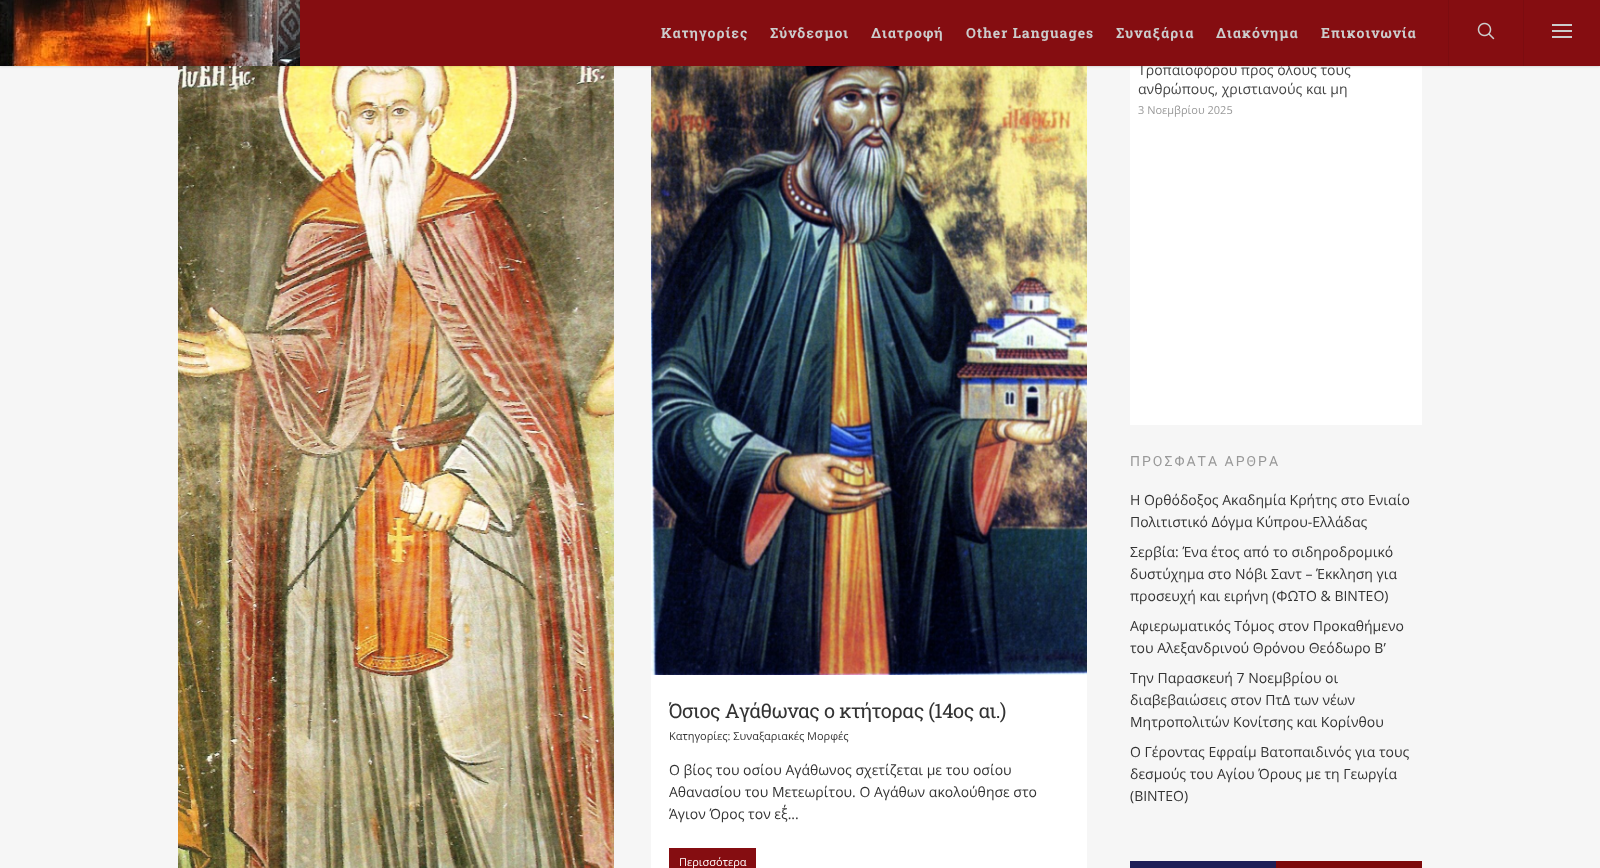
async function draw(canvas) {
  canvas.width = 1600;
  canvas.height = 868;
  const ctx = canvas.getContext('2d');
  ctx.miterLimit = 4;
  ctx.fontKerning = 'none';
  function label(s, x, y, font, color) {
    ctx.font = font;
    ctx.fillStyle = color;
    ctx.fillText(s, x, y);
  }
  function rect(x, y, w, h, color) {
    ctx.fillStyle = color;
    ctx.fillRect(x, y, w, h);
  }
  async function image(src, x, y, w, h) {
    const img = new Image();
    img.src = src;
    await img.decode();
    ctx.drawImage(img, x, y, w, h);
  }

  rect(0, 0, 1600, 868, '#f6f6f6');
  await image('assets/img3.png', 178, 66, 436, 802);
  await image('assets/img4.png', 651, 66, 436, 609);
  rect(1130, 66, 292, 359, '#fff');
  ctx.fillStyle = '#00000038';
  ctx.filter = 'blur(1.5px)';
  ctx.beginPath();
  ctx.rect(0, 0, 1600, 66);
  ctx.fill();
  ctx.filter = 'none';
  label('Τροπαιοφόρου προς όλους τους', 1138, 75, '14px Open Sans', '#444');
  rect(300, 0, 1300, 66, '#850d11');
  await image('assets/img1.png', 0, 0, 300, 66);
  ctx.letterSpacing = '1px';
  label('Κατηγορίες', 661, 38, 'bold 14px Roboto Slab', '#ccc');
  label('Σύνδεσμοι', 770, 38, 'bold 14px Roboto Slab', '#ccc');
  label('Διατροφή', 871, 38, 'bold 14px Roboto Slab', '#ccc');
  label('Other Languages', 966, 38, 'bold 14px Roboto Slab', '#ccc');
  label('Συναξάρια', 1116, 38, 'bold 14px Roboto Slab', '#ccc');
  label('Διακόνημα', 1216, 38, 'bold 14px Roboto Slab', '#ccc');
  label('Επικοινωνία', 1321, 38, 'bold 14px Roboto Slab', '#ccc');
  rect(1448, 0, 1, 66, '#7c0c10');
  await image('assets/img2.png', 1477, 22, 18, 18);
  rect(1523, 0, 1, 66, '#7c0c10');
  rect(1552, 30, 20, 2, '#ccc');
  rect(1552, 24, 20, 2, '#ccc');
  rect(1552, 36, 20, 2, '#ccc');
  rect(651, 675, 436, 193, '#fff');
  ctx.letterSpacing = '-0.5px';
  label('Όσιος Αγάθωνας ο κτήτορας (14ος αι.)', 669, 718, '20px Roboto Slab', '#333');
  ctx.letterSpacing = '0px';
  label('Κατηγορίες: Συναξαριακές Μορφές', 669, 740, '11px Open Sans', '#333');
  label('Ο βίος του οσίου Αγάθωνος σχετίζεται με του οσίου', 669, 775, '14px Open Sans', '#333');
  label('Αθανασίου του Μετεωρίτου. Ο Αγάθων ακολούθησε στο', 669, 797, '14px Open Sans', '#333');
  label('Άγιον Όρος τον εξ΄...', 669, 819, '14px Open Sans', '#333');
  rect(669, 848, 87, 20, '#850d11');
  label('Περισσότερα', 679, 866, '11px Open Sans', '#fff');
  label('ανθρώπους, χριστιανούς και μη', 1138, 94, '14px Open Sans', '#444');
  label('3 Νοεμβρίου 2025', 1138, 114, '11px Open Sans', '#999');
  ctx.letterSpacing = '2px';
  label('ΠΡΟΣΦΑΤΑ ΑΡΘΡΑ', 1130, 466, '14px Roboto', '#999');
  ctx.letterSpacing = '0px';
  label('Η Ορθόδοξος Ακαδημία Κρήτης στο Ενιαίο', 1130, 505, '14px Open Sans', '#333');
  label('Πολιτιστικό Δόγμα Κύπρου-Ελλάδας', 1130, 527, '14px Open Sans', '#333');
  label('Σερβία: Ένα έτος από το σιδηροδρομικό', 1130, 557, '14px Open Sans', '#333');
  label('δυστύχημα στο Νόβι Σαντ – Έκκληση για', 1130, 579, '14px Open Sans', '#333');
  label('προσευχή και ειρήνη (ΦΩΤΟ & ΒΙΝΤΕΟ)', 1130, 601, '14px Open Sans', '#333');
  label('Αφιερωματικός Τόμος στον Προκαθήμενο', 1130, 631, '14px Open Sans', '#333');
  label('του Αλεξανδρινού Θρόνου Θεόδωρο Β’', 1130, 653, '14px Open Sans', '#333');
  label('Την Παρασκευή 7 Νοεμβρίου οι', 1130, 683, '14px Open Sans', '#333');
  label('διαβεβαιώσεις στον ΠτΔ των νέων', 1130, 705, '14px Open Sans', '#333');
  label('Μητροπολιτών Κονίτσης και Κορίνθου', 1130, 727, '14px Open Sans', '#333');
  label('Ο Γέροντας Εφραίμ Βατοπαιδινός για τους', 1130, 757, '14px Open Sans', '#333');
  label('δεσμούς του Αγίου Όρους με τη Γεωργία', 1130, 779, '14px Open Sans', '#333');
  label('(BINTEO)', 1130, 801, '14px Open Sans', '#333');
  rect(1130, 861, 146, 7, '#1e1f57');
  rect(1276, 861, 146, 7, '#7d090b');
}

draw(document.querySelector('canvas'));
